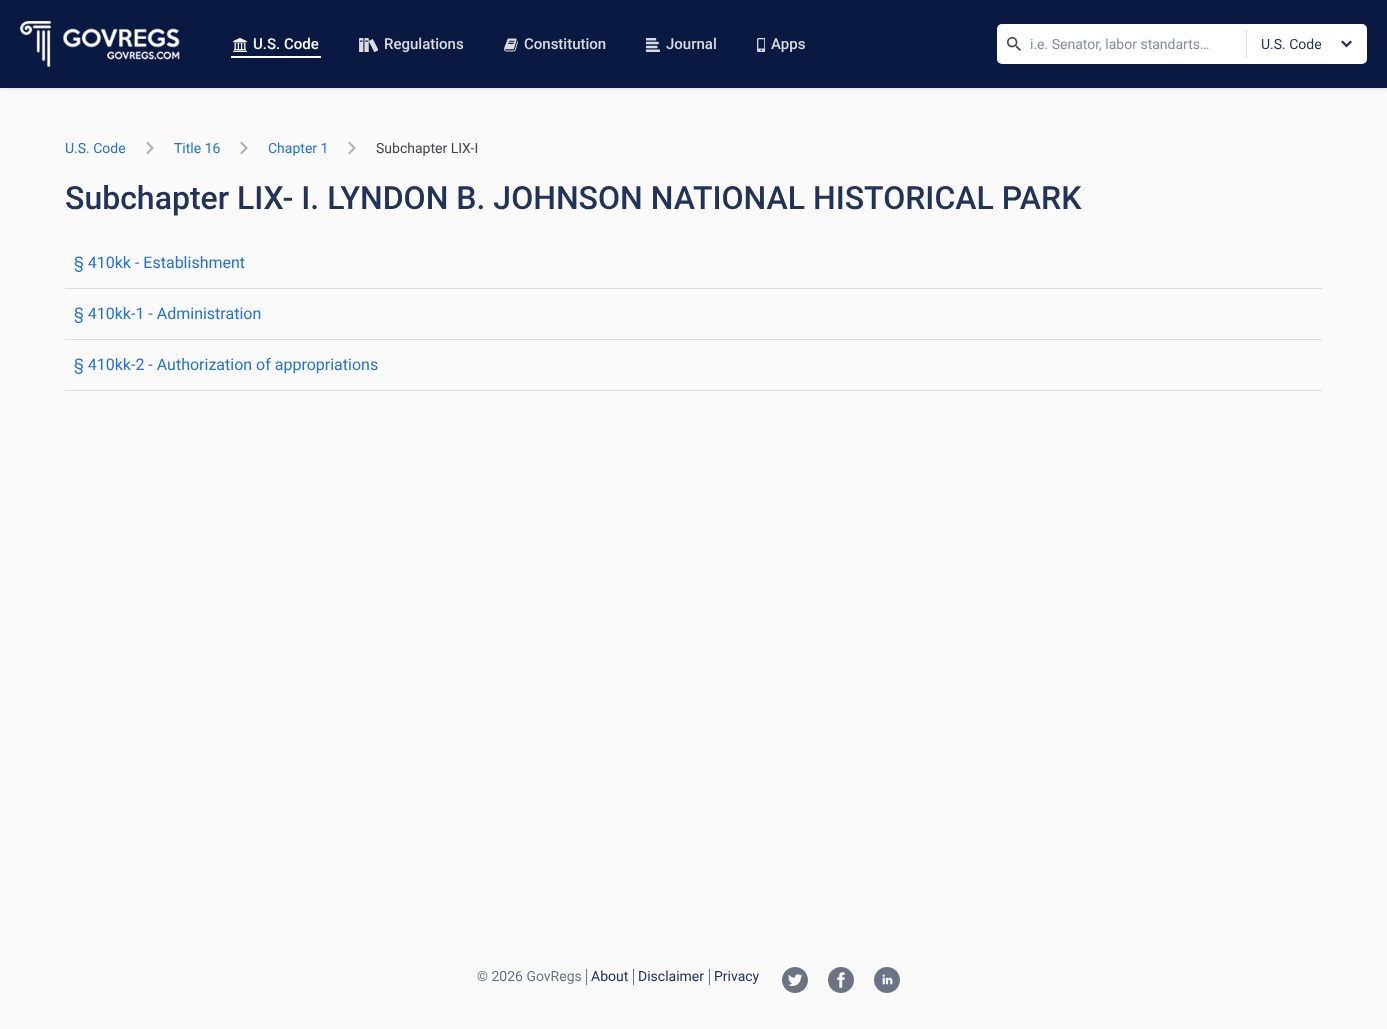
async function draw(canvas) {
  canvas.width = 1387;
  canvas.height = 1029;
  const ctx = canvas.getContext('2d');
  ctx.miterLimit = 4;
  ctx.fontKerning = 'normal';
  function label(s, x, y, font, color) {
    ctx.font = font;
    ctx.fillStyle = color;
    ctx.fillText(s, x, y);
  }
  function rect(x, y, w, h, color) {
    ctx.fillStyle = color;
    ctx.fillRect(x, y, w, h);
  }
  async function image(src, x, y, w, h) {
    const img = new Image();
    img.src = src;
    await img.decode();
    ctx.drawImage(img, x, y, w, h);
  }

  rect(0, 0, 1387, 1029, '#fafafa');
  ctx.fillStyle = '#d7d7d780';
  ctx.filter = 'blur(2px)';
  ctx.beginPath();
  ctx.rect(0, 2, 1387, 88);
  ctx.fill();
  ctx.filter = 'none';
  rect(0, 0, 1387, 88, '#091942');
  await image('assets/img1.png', 20, 21, 160, 46);
  await image('assets/img2.png', 233, 38, 14, 14);
  label('U.S. Code', 253, 49, '500 15px Roboto', '#fff');
  rect(231, 56, 90, 2, '#fff');
  await image('assets/img3.png', 359, 38, 19, 14);
  label('Regulations', 384, 49, '500 15px Roboto', '#dadce0');
  await image('assets/img4.png', 504, 38, 14, 14);
  label('Constitution', 524, 49, '500 15px Roboto', '#dadce0');
  await image('assets/img5.png', 646, 38, 14, 14);
  label('Journal', 666, 49, '500 15px Roboto', '#dadce0');
  await image('assets/img6.png', 757, 38, 8, 14);
  label('Apps', 771, 49, '500 15px Roboto', '#dadce0');
  ctx.fillStyle = '#fff';
  ctx.beginPath();
  ctx.roundRect(997, 24, 249, 40, [5, 0, 0, 5]);
  ctx.fill();
  await image('assets/img7.png', 1007, 37, 14, 14);
  label('i.e. Senator, labor standarts…', 1030, 49, '14px Roboto', '#838da2');
  ctx.fillStyle = '#fff';
  ctx.beginPath();
  ctx.roundRect(1246, 24, 121, 40, [0, 5, 5, 0]);
  ctx.fill();
  rect(1246, 30, 1, 28, '#dbdee4');
  label('U.S. Code', 1261, 49, '14px Roboto', '#223358');
  await image('assets/img8.png', 1341, 40, 11, 8);
  label('U.S. Code', 65, 153, '14px Roboto', '#2371d4');
  await image('assets/img9.png', 146, 141, 8, 14);
  label('Title 16', 174, 153, '14px Roboto', '#2371d4');
  await image('assets/img9.png', 240, 141, 8, 14);
  label('Chapter 1', 268, 153, '14px Roboto', '#2371d4');
  await image('assets/img9.png', 348, 141, 8, 14);
  label('Subchapter LIX-I', 376, 153, '14px Roboto', '#414549');
  label('Subchapter LIX- I. LYNDON B. JOHNSON NATIONAL HISTORICAL PARK', 65, 209, '500 32px Roboto', '#223358');
  rect(65, 288, 1257, 1, '#ddd');
  label('§ 410kk - Establishment', 74, 268, '16px Roboto', '#2371d4');
  rect(65, 339, 1257, 1, '#ddd');
  label('§ 410kk-1 - Administration', 74, 319, '16px Roboto', '#2371d4');
  rect(65, 390, 1257, 1, '#ddd');
  label('§ 410kk-2 - Authorization of appropriations', 74, 370, '16px Roboto', '#2371d4');
  label('© 2026 GovRegs', 477, 981, '14px Roboto', '#6c7484');
  rect(586, 969, 1, 16, '#6c7484');
  label('About', 591, 981, '14px Roboto', '#223358');
  rect(633, 969, 1, 16, '#6c7484');
  label('Disclaimer', 638, 981, '14px Roboto', '#223358');
  rect(709, 969, 1, 16, '#6c7484');
  label('Privacy', 714, 981, '14px Roboto', '#223358');
  await image('assets/img10.png', 782, 967, 26, 26);
  await image('assets/img11.png', 828, 967, 26, 26);
  await image('assets/img12.png', 874, 967, 26, 26);
}

draw(document.querySelector('canvas'));
